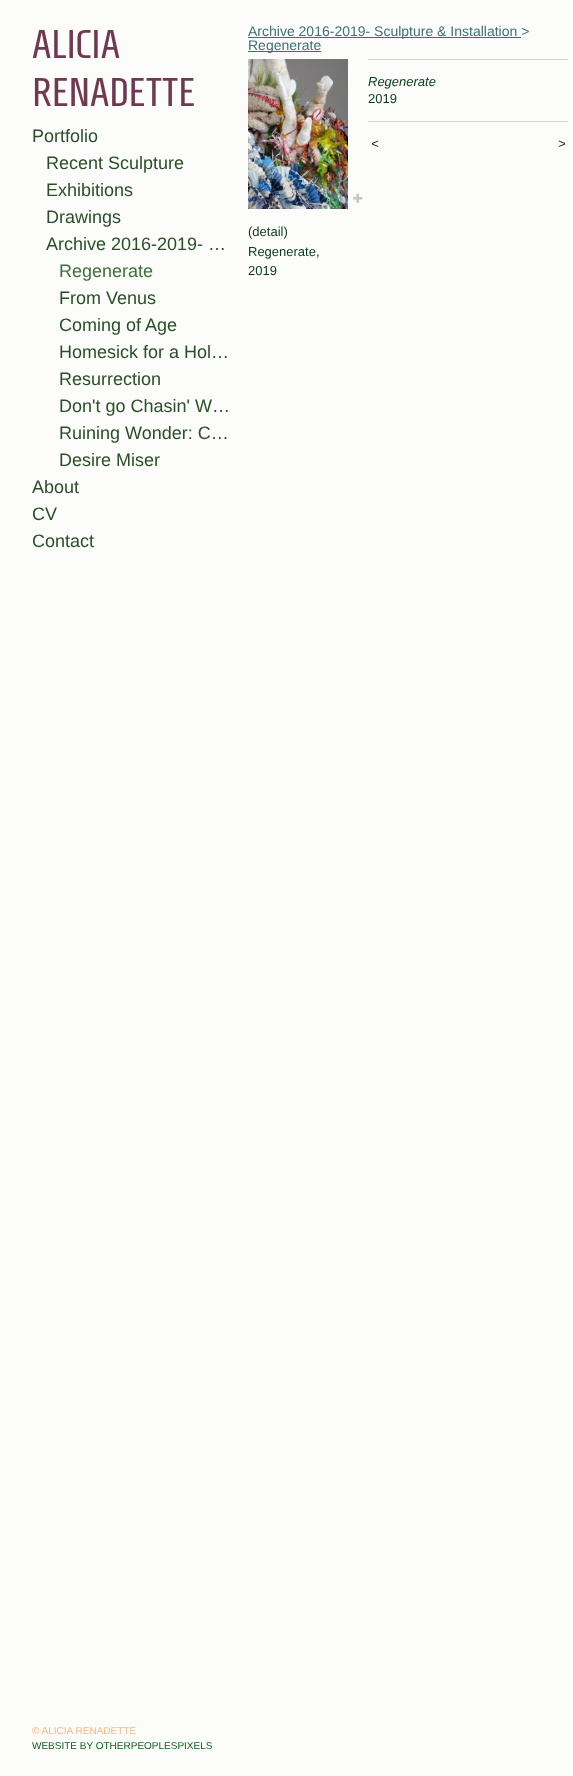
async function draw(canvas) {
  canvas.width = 573;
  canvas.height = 1776;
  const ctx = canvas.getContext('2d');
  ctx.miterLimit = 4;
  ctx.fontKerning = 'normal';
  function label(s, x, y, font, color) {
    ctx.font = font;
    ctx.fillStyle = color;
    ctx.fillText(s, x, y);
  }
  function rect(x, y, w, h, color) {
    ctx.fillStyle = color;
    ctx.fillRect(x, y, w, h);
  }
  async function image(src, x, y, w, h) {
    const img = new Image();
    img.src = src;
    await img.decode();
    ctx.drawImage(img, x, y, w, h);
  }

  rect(0, 0, 573, 1776, '#fcfcfb');
  label('ALICIA', 32, 58, '40px Homenaje', '#6f3950');
  label('RENADETTE', 32, 106, '40px Homenaje', '#6f3950');
  label('Portfolio', 32, 142, '18px Liberation Sans', '#2a4e27');
  label('Recent Sculpture', 46, 169, '18px Liberation Sans', '#2a4e27');
  label('Exhibitions', 46, 196, '18px Liberation Sans', '#2a4e27');
  label('Drawings', 46, 223, '18px Liberation Sans', '#2a4e27');
  label('Archive 2016-2019- …', 46, 250, '18px Liberation Sans', '#2a4e27');
  label('Regenerate', 59, 277, '18px Liberation Sans', '#3c7038');
  label('From Venus', 59, 304, '18px Liberation Sans', '#2a4e27');
  label('Coming of Age', 59, 331, '18px Liberation Sans', '#2a4e27');
  label('Homesick for a Hol…', 59, 358, '18px Liberation Sans', '#2a4e27');
  label('Resurrection', 59, 385, '18px Liberation Sans', '#2a4e27');
  label('Don\'t go Chasin\' W…', 59, 412, '18px Liberation Sans', '#2a4e27');
  label('Ruining Wonder: C…', 59, 439, '18px Liberation Sans', '#2a4e27');
  label('Desire Miser', 59, 466, '18px Liberation Sans', '#2a4e27');
  label('About', 32, 493, '18px Liberation Sans', '#2a4e27');
  label('CV', 32, 520, '18px Liberation Sans', '#2a4e27');
  label('Contact', 32, 547, '18px Liberation Sans', '#2a4e27');
  label('© ALICIA RENADETTE', 32, 1734, '10px Liberation Sans', '#f8b881');
  label('WEBSITE BY OTHERPEOPLESPIXELS', 32, 1749, '10px Liberation Sans', '#08651d');
  rect(248, 37, 273, 1, '#3d7075');
  label('Archive 2016-2019- Sculpture & Installation >', 248, 36, '14px Liberation Sans', '#3d7075');
  rect(248, 51, 73, 1, '#3d7075');
  label('Regenerate', 248, 50, '14px Liberation Sans', '#3d7075');
  await image('assets/img1.png', 248, 59, 100, 150);
  await image('assets/img2.png', 353, 193, 10, 10);
  rect(368, 59, 200, 1, '#cbd5ce');
  label('Regenerate', 368, 86, 'italic 13px Liberation Sans', '#073a1b');
  label('2019', 368, 103, '13px Liberation Sans', '#073a1b');
  rect(368, 121, 200, 1, '#cbd5ce');
  ctx.letterSpacing = '1px';
  label('<', 371, 148, 'italic 13px Liberation Sans', '#073a1b');
  label('>', 558, 148, 'italic 13px Liberation Sans', '#073a1b');
  ctx.letterSpacing = '0px';
  label('(detail)', 248, 236, '13px Liberation Sans', '#073a1b');
  label('Regenerate,', 248, 256, '13px Liberation Sans', '#073a1b');
  label('2019', 248, 275, '13px Liberation Sans', '#073a1b');
}

draw(document.querySelector('canvas'));
